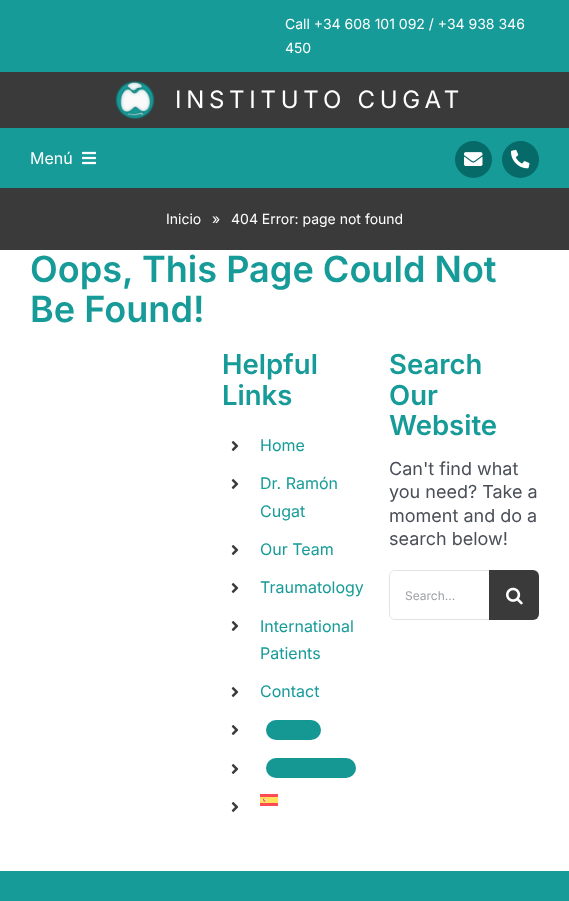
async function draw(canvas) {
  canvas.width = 569;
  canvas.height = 901;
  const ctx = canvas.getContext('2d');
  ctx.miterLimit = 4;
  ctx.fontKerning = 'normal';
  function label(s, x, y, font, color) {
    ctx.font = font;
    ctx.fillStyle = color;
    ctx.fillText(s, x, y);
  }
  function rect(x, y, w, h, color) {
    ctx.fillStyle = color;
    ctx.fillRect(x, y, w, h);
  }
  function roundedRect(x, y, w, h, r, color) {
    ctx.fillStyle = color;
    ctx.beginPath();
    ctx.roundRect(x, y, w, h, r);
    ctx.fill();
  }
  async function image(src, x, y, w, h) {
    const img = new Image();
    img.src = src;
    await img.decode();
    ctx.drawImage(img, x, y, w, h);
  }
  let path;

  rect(0, 0, 569, 901, '#fff');
  rect(0, 0, 569, 72, '#169b98');
  label('Call +34 608 101 092 / +34 938 346', 285, 29, '14px Inter', '#fff');
  label('450', 285, 53, '14px Inter', '#fff');
  rect(0, 72, 569, 56, '#3a3a3a');
  await image('assets/img1.png', 115, 80, 40, 40);
  ctx.letterSpacing = '4.75px';
  label('INSTITUTO CUGAT', 175, 108, '24px Inter', '#fff');
  rect(0, 128, 569, 60, '#169b98');
  ctx.letterSpacing = '0px';
  label('Menú', 30, 164, '16px Inter', '#fff');
  await image('assets/img2.png', 82, 151, 14, 14);
  ctx.fillStyle = '#066a68';
  ctx.beginPath();
  ctx.arc(473.5, 159.5, 18.5, 0, 2 * Math.PI);
  ctx.fill();
  await image('assets/img3.png', 464, 152, 19, 14);
  ctx.beginPath();
  ctx.arc(520.5, 159.5, 18.5, 0, 2 * Math.PI);
  ctx.fill();
  await image('assets/img4.png', 511, 149, 19, 20);
  rect(0, 188, 569, 62, '#3a3a3a');
  label('Inicio', 166, 224, '14px Inter', '#fff');
  label('»', 212, 224, '14px Inter', '#fff');
  label('404 Error: page not found', 231, 224, '14px Inter', '#fff');
  label('Oops, This Page Could Not', 30, 282, '600 36.1px Inter', '#169b98');
  label('Be Found!', 30, 322, '600 36.1px Inter', '#169b98');
  label('Helpful', 222, 374, '600 27.5px Inter', '#169b98');
  label('Links', 222, 405, '600 27.5px Inter', '#169b98');
  await image('assets/img5.png', 231, 441, 8, 10);
  label('Home', 260, 451, '16px Inter', '#169b98');
  await image('assets/img5.png', 231, 479, 8, 10);
  label('Dr. Ramón', 260, 489, '16px Inter', '#169b98');
  label('Cugat', 260, 517, '16px Inter', '#169b98');
  await image('assets/img5.png', 231, 545, 8, 10);
  label('Our Team', 260, 555, '16px Inter', '#169b98');
  await image('assets/img5.png', 231, 583, 8, 10);
  label('Traumatology', 260, 593, '16px Inter', '#169b98');
  await image('assets/img5.png', 231, 621, 8, 10);
  label('International', 260, 632, '16px Inter', '#169b98');
  label('Patients', 260, 659, '16px Inter', '#169b98');
  await image('assets/img5.png', 231, 687, 8, 10);
  label('Contact', 260, 697, '16px Inter', '#169b98');
  await image('assets/img5.png', 231, 725, 8, 10);
  roundedRect(266, 720, 55, 20, 10, '#159794');
  await image('assets/img5.png', 231, 764, 8, 10);
  roundedRect(266, 758, 90, 20, 10, '#159794');
  await image('assets/img6.png', 260, 794, 18, 12);
  await image('assets/img5.png', 231, 802, 8, 10);
  label('Search', 389, 374, '600 27.5px Inter', '#169b98');
  label('Our', 389, 405, '600 27.5px Inter', '#169b98');
  label('Website', 389, 435, '600 27.5px Inter', '#169b98');
  label('Can\'t find what', 389, 475, '18px Inter', '#4a4e57');
  label('you need? Take a', 389, 498, '18px Inter', '#4a4e57');
  label('moment and do a', 389, 522, '18px Inter', '#4a4e57');
  label('search below!', 389, 545, '18px Inter', '#4a4e57');
  ctx.fillStyle = '#e2e2e2';
  path = new Path2D('M395 570H489V620H395C392 620 389 617 389 614V576C389 573 392 570 395 570ZM395 571H489V619H395C392 619 390 617 390 614V576C390 573 392 571 395 571Z');
  ctx.fill(path, 'evenodd');
  label('Search...', 405, 600, '12px Inter', '#9ea0a4');
  ctx.fillStyle = '#3a3a3a';
  ctx.beginPath();
  ctx.roundRect(489, 570, 50, 50, [0, 6, 6, 0]);
  ctx.fill();
  await image('assets/img7.png', 506, 587, 17, 18);
  rect(0, 871, 569, 30, '#169b98');
}

draw(document.querySelector('canvas'));
